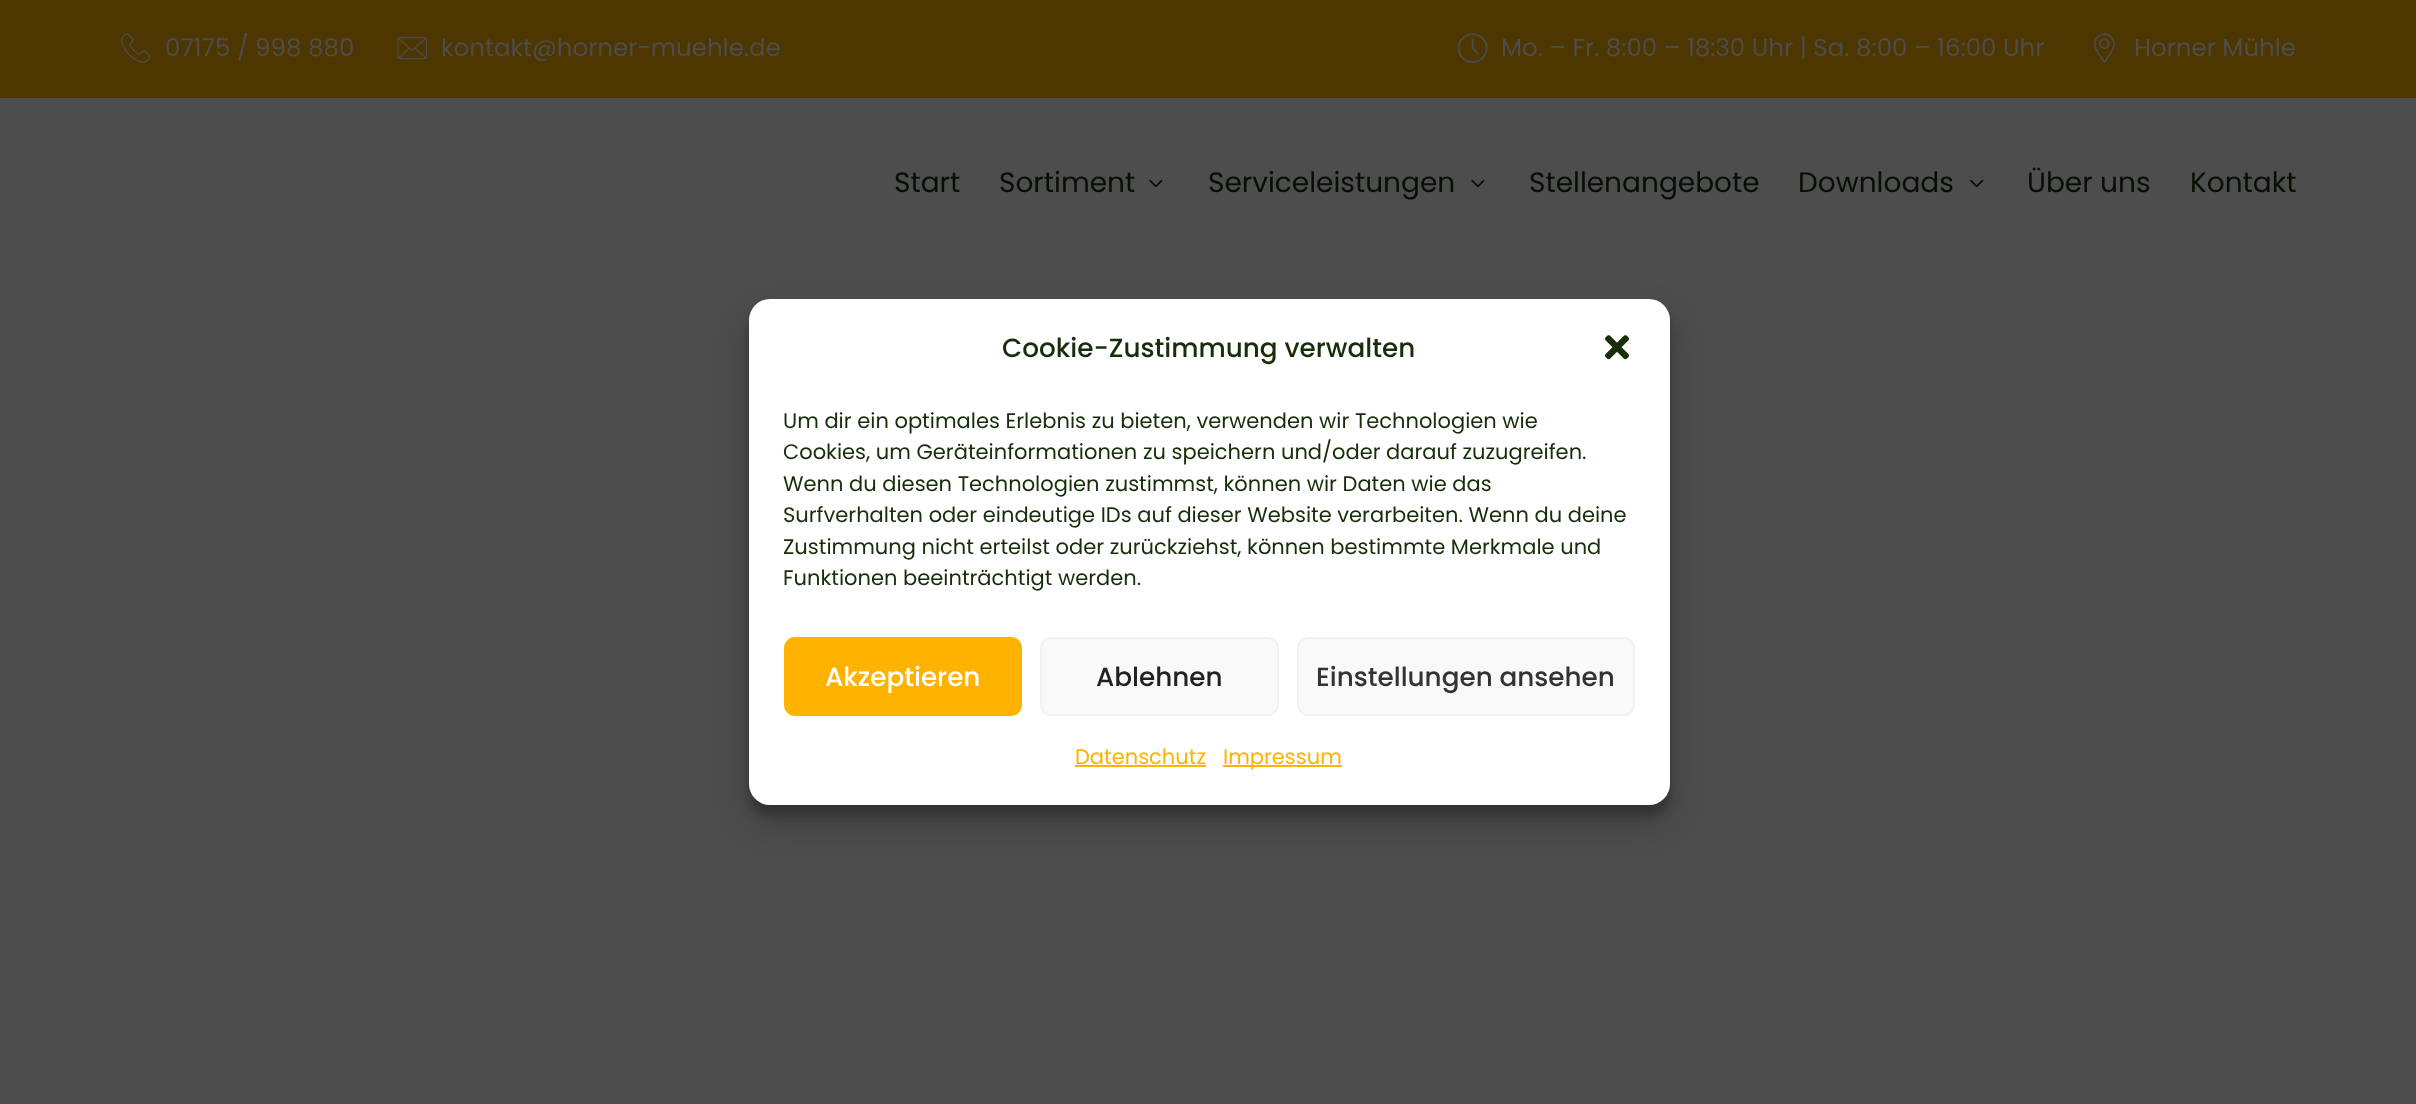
async function draw(canvas) {
  canvas.width = 2416;
  canvas.height = 1104;
  const ctx = canvas.getContext('2d');
  ctx.miterLimit = 4;
  ctx.fontKerning = 'normal';
  function label(s, x, y, font, color) {
    ctx.font = font;
    ctx.fillStyle = color;
    ctx.fillText(s, x, y);
  }
  function rect(x, y, w, h, color) {
    ctx.fillStyle = color;
    ctx.fillRect(x, y, w, h);
  }
  function roundedRect(x, y, w, h, r, color) {
    ctx.fillStyle = color;
    ctx.beginPath();
    ctx.roundRect(x, y, w, h, r);
    ctx.fill();
  }
  async function image(src, x, y, w, h) {
    const img = new Image();
    img.src = src;
    await img.decode();
    ctx.drawImage(img, x, y, w, h);
  }

  rect(0, 0, 2416, 1104, '#4d4d4d');
  rect(0, 0, 2416, 98, '#4d3600');
  await image('assets/img1.png', 120, 33, 31, 30);
  label('07175 / 998 880', 165, 56, '24.5px Poppins', '#4d4d4d');
  await image('assets/img2.png', 397, 36, 30, 24);
  label('kontakt@horner-muehle.de', 441, 56, '24.5px Poppins', '#4d4d4d');
  await image('assets/img3.png', 1457, 33, 31, 30);
  label('Mo. – Fr. 8:00 – 18:30 Uhr | Sa. 8:00 – 16:00 Uhr', 1501, 56, '24.5px Poppins', '#4d4d4d');
  await image('assets/img4.png', 2093, 33, 23, 30);
  label('Horner Mühle', 2134, 56, '24.5px Poppins', '#4d4d4d');
  label('Start', 894, 192, '28px Poppins', '#070e03');
  label('Sortiment', 999, 192, '28px Poppins', '#070e03');
  await image('assets/img5.png', 1149, 179, 14, 9);
  label('Serviceleistungen', 1208, 192, '28px Poppins', '#070e03');
  await image('assets/img5.png', 1471, 179, 14, 9);
  label('Stellenangebote', 1529, 192, '28px Poppins', '#070e03');
  label('Downloads', 1798, 192, '28px Poppins', '#070e03');
  await image('assets/img6.png', 1970, 179, 14, 9);
  label('Über uns', 2027, 192, '28px Poppins', '#070e03');
  label('Kontakt', 2190, 192, '28px Poppins', '#070e03');
  ctx.fillStyle = '#0000003b';
  ctx.filter = 'blur(5px)';
  ctx.beginPath();
  ctx.roundRect(749, 310, 921, 506, 21);
  ctx.fill();
  ctx.filter = 'none';
  ctx.fillStyle = '#00000030';
  ctx.filter = 'blur(17.5px)';
  ctx.beginPath();
  ctx.roundRect(749, 317, 921, 506, 21);
  ctx.fill();
  ctx.filter = 'none';
  roundedRect(749, 299, 921, 506, 21, '#fff');
  label('Cookie-Zustimmung verwalten', 1002, 357, '500 26.25px Poppins', '#162e09');
  await image('assets/img7.png', 1605, 335, 24, 25);
  label('Um dir ein optimales Erlebnis zu bieten, verwenden wir Technologien wie', 783, 428, '21px Poppins', '#162e09');
  label('Cookies, um Geräteinformationen zu speichern und/oder darauf zuzugreifen.', 783, 459, '21px Poppins', '#162e09');
  label('Wenn du diesen Technologien zustimmst, können wir Daten wie das', 783, 491, '21px Poppins', '#162e09');
  label('Surfverhalten oder eindeutige IDs auf dieser Website verarbeiten. Wenn du deine', 783, 522, '21px Poppins', '#162e09');
  label('Zustimmung nicht erteilst oder zurückziehst, können bestimmte Merkmale und', 783, 554, '21px Poppins', '#162e09');
  label('Funktionen beeinträchtigt werden.', 783, 585, '21px Poppins', '#162e09');
  ctx.fillStyle = '#ffb300';
  ctx.beginPath();
  ctx.roundRect(785, 638, 236, 77, 10);
  ctx.fill();
  ctx.strokeStyle = '#ffb300';
  ctx.lineWidth = 2;
  ctx.stroke();
  label('Akzeptieren', 825, 686, '500 26.25px Poppins', '#fff');
  ctx.fillStyle = '#f9f9f9';
  ctx.beginPath();
  ctx.roundRect(1041, 638, 237, 77, 10);
  ctx.fill();
  ctx.strokeStyle = '#f2f2f2';
  ctx.stroke();
  label('Ablehnen', 1096, 686, '500 26.25px Poppins', '#222');
  ctx.fillStyle = '#f9f9f9';
  ctx.beginPath();
  ctx.roundRect(1298, 638, 336, 77, 10);
  ctx.fill();
  ctx.stroke();
  label('Einstellungen ansehen', 1316, 686, '500 26.25px Poppins', '#333');
  label('Datenschutz', 1075, 764, '21px Poppins', '#ffb300');
  rect(1075, 765, 131, 2, '#ffb300');
  rect(1223, 765, 119, 2, '#ffb300');
  label('Impressum', 1223, 764, '21px Poppins', '#ffb300');
}

draw(document.querySelector('canvas'));
